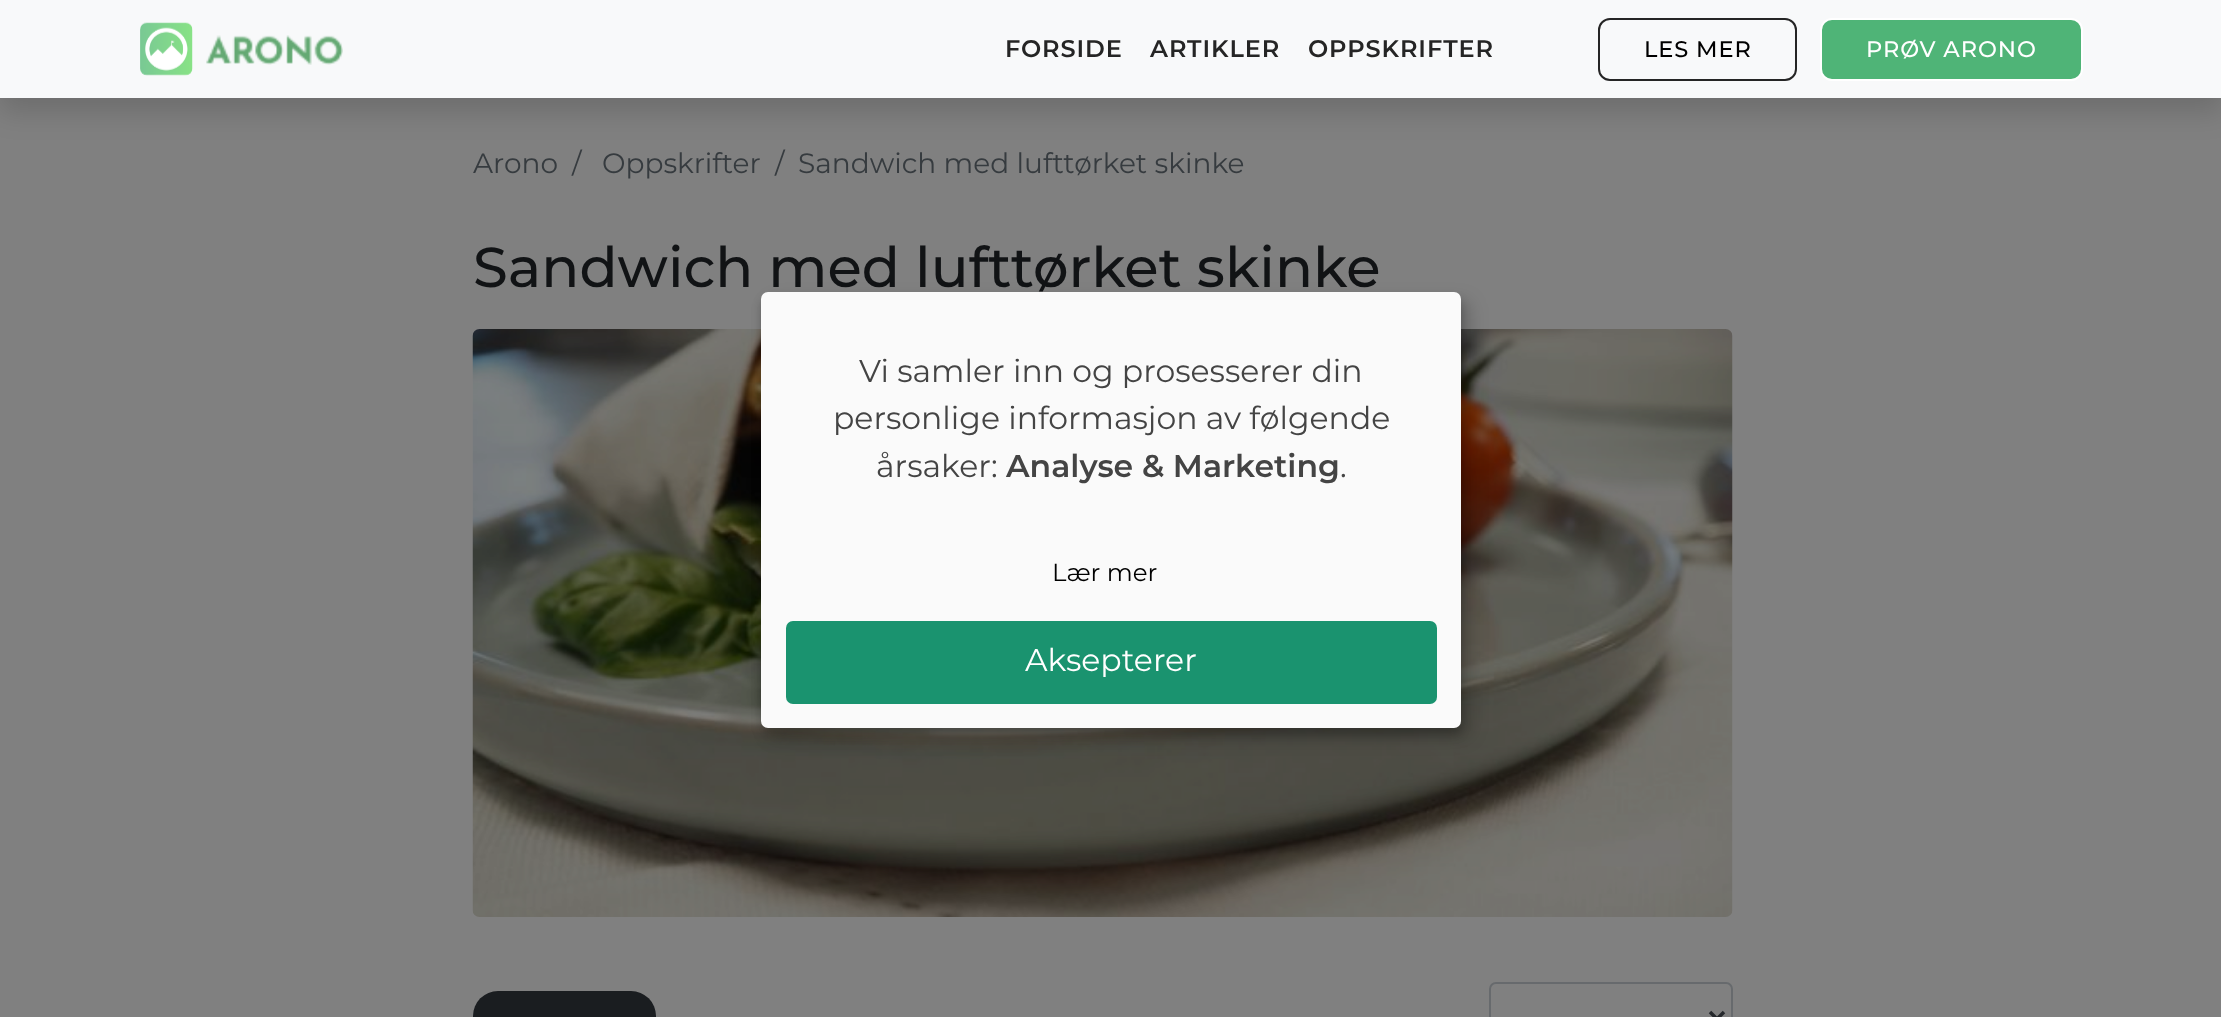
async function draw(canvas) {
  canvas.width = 2221;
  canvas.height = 1017;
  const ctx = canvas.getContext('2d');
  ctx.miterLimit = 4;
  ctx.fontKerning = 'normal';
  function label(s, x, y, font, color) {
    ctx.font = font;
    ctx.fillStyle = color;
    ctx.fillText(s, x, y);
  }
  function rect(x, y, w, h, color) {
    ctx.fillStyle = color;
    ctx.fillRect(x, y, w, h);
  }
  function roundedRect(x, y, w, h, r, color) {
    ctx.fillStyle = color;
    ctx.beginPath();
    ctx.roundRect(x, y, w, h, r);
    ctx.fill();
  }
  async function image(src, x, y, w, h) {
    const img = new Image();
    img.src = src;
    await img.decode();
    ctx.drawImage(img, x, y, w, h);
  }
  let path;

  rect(0, 0, 2221, 1017, '#808080');
  ctx.fillStyle = '#00000026';
  ctx.filter = 'blur(14px)';
  ctx.beginPath();
  ctx.rect(0, 14, 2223, 98);
  ctx.fill();
  ctx.filter = 'none';
  rect(0, 0, 2221, 98, '#f8f9fa');
  await image('assets/img1.png', 140, 22, 53, 54);
  await image('assets/img2.png', 206, 35, 137, 30);
  ctx.letterSpacing = '0.9px';
  label('FORSIDE', 1005, 57, '600 24px Montserrat', '#252525');
  label('ARTIKLER', 1150, 57, '600 24px Montserrat', '#252525');
  label('OPPSKRIFTER', 1308, 57, '600 24px Montserrat', '#252525');
  ctx.beginPath();
  ctx.roundRect(1599, 19, 197, 61, 11);
  ctx.strokeStyle = '#252525';
  ctx.lineWidth = 2;
  ctx.stroke();
  label('LES MER', 1644, 57, '500 22.5px Montserrat', '#000');
  ctx.fillStyle = '#4fb477';
  ctx.beginPath();
  ctx.roundRect(1821, 19, 261, 61, 11);
  ctx.fill();
  ctx.strokeStyle = '#fff';
  ctx.stroke();
  label('PRØV ARONO', 1866, 57, '500 22.5px Montserrat', '#fff');
  ctx.letterSpacing = '0px';
  label('Arono', 473, 173, '28px Montserrat', '#363b3f');
  label('/', 572, 173, '28px Montserrat', '#363b3f');
  label('Oppskrifter', 602, 173, '28px Montserrat', '#363b3f');
  label('/', 775, 173, '28px Montserrat', '#363b3f');
  label('Sandwich med lufttørket skinke', 798, 173, '28px Montserrat', '#363b3f');
  label('Sandwich med lufttørket skinke', 473, 287, '500 56px Montserrat', '#111315');
  await image('assets/img3.png', 472, 329, 1261, 588);
  roundedRect(473, 991, 183, 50, 25, '#1a1d20');
  ctx.beginPath();
  ctx.roundRect(1490, 983, 242, 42, 6);
  ctx.strokeStyle = '#676a6d';
  ctx.stroke();
  path = new Path2D('M1710 1012L1717 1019L1724 1012');
  ctx.strokeStyle = '#25282c';
  ctx.lineWidth = 3.5;
  ctx.stroke(path);
  ctx.fillStyle = '#00000030';
  ctx.filter = 'blur(9px)';
  ctx.beginPath();
  ctx.roundRect(770, 301, 700, 436, 7);
  ctx.fill();
  ctx.filter = 'none';
  ctx.fillStyle = '#00000033';
  ctx.filter = 'blur(5px)';
  ctx.beginPath();
  ctx.roundRect(761, 299, 700, 436, 7);
  ctx.fill();
  ctx.filter = 'none';
  roundedRect(761, 292, 700, 436, 7, '#fafafa');
  label('Vi samler inn og prosesserer din', 859, 382, '31.5px Montserrat', '#444');
  label('personlige informasjon av følgende', 833, 429, '31.5px Montserrat', '#444');
  label('årsaker:', 876, 477, '31.5px Montserrat', '#444');
  label('Analyse & Marketing', 1006, 477, '600 31.5px Montserrat', '#444');
  label('.', 1340, 477, '31.5px Montserrat', '#444');
  label('Lær mer', 1052, 581, '24.5px Montserrat', '#000');
  roundedRect(786, 621, 651, 83, 7, '#1a936f');
  label('Aksepterer', 1025, 671, '31.5px Montserrat', '#fff');
}

draw(document.querySelector('canvas'));
